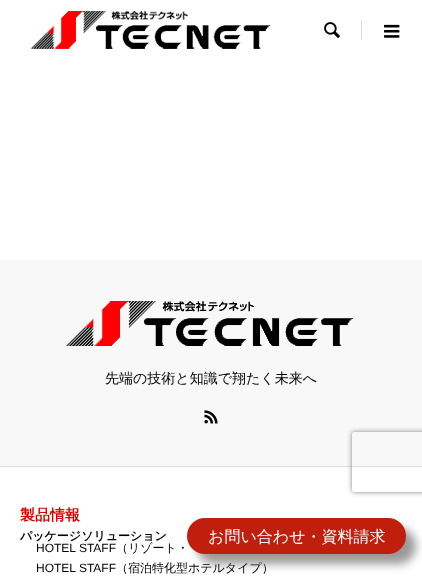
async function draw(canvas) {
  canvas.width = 422;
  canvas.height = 586;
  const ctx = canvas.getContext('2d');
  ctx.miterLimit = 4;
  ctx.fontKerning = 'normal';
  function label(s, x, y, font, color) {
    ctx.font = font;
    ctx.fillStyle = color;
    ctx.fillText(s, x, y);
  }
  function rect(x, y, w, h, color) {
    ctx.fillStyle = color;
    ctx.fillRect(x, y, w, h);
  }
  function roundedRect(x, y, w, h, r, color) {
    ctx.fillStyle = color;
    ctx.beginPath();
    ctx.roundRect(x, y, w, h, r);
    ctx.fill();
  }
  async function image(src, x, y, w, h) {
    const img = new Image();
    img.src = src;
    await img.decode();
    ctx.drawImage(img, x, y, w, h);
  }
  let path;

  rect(0, 0, 422, 586, '#fff');
  await image('assets/img1.png', 31, 11, 240, 38);
  await image('assets/img2.png', 324, 22, 16, 16);
  rect(361, 20, 1, 20, '#ddd');
  await image('assets/img3.png', 384, 24, 16, 14);
  rect(0, 260, 422, 206, '#f8f8f8');
  rect(0, 466, 422, 1, '#ddd');
  await image('assets/img4.png', 66, 301, 288, 45);
  label('先端の技術と知識で翔たく未来へ', 105, 383, '500 14px WenQuanYi Zen Hei', '#000');
  await image('assets/img5.png', 204, 410, 14, 14);
  label('製品情報', 20, 520, 'bold 15px WenQuanYi Zen Hei', '#d90000');
  label('パッケージソリューション', 20, 540, 'bold 12px WenQuanYi Zen Hei', '#000');
  label('HOTEL STAFF', 36, 552, '12px Liberation Sans', '#000');
  label('（リゾート・', 116, 552, '500 12px WenQuanYi Zen Hei', '#000');
  label('HOTEL STAFF', 36, 572, '12px Liberation Sans', '#000');
  label('（宿泊特化型ホテルタイプ）', 116, 572, '500 12px WenQuanYi Zen Hei', '#000');
  ctx.save();
  path = new Path2D('M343 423H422V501H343ZM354 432H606C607 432 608 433 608 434V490C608 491 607 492 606 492H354C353 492 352 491 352 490V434C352 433 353 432 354 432Z');
  ctx.clip(path, 'evenodd');
  ctx.fillStyle = '#808080';
  ctx.filter = 'blur(2.5px)';
  ctx.beginPath();
  ctx.roundRect(352, 432, 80, 60, 2);
  ctx.fill();
  ctx.filter = 'none';
  ctx.restore();
  ctx.fillStyle = '#00000066';
  ctx.filter = 'blur(5px)';
  ctx.beginPath();
  ctx.roundRect(197, 528, 219, 36, 18);
  ctx.fill();
  ctx.filter = 'none';
  roundedRect(187, 518, 219, 36, 18, '#c01f0e');
  label('お問い合わせ・資料請求', 208, 542, '500 16px WenQuanYi Zen Hei', '#fff');
}

draw(document.querySelector('canvas'));
